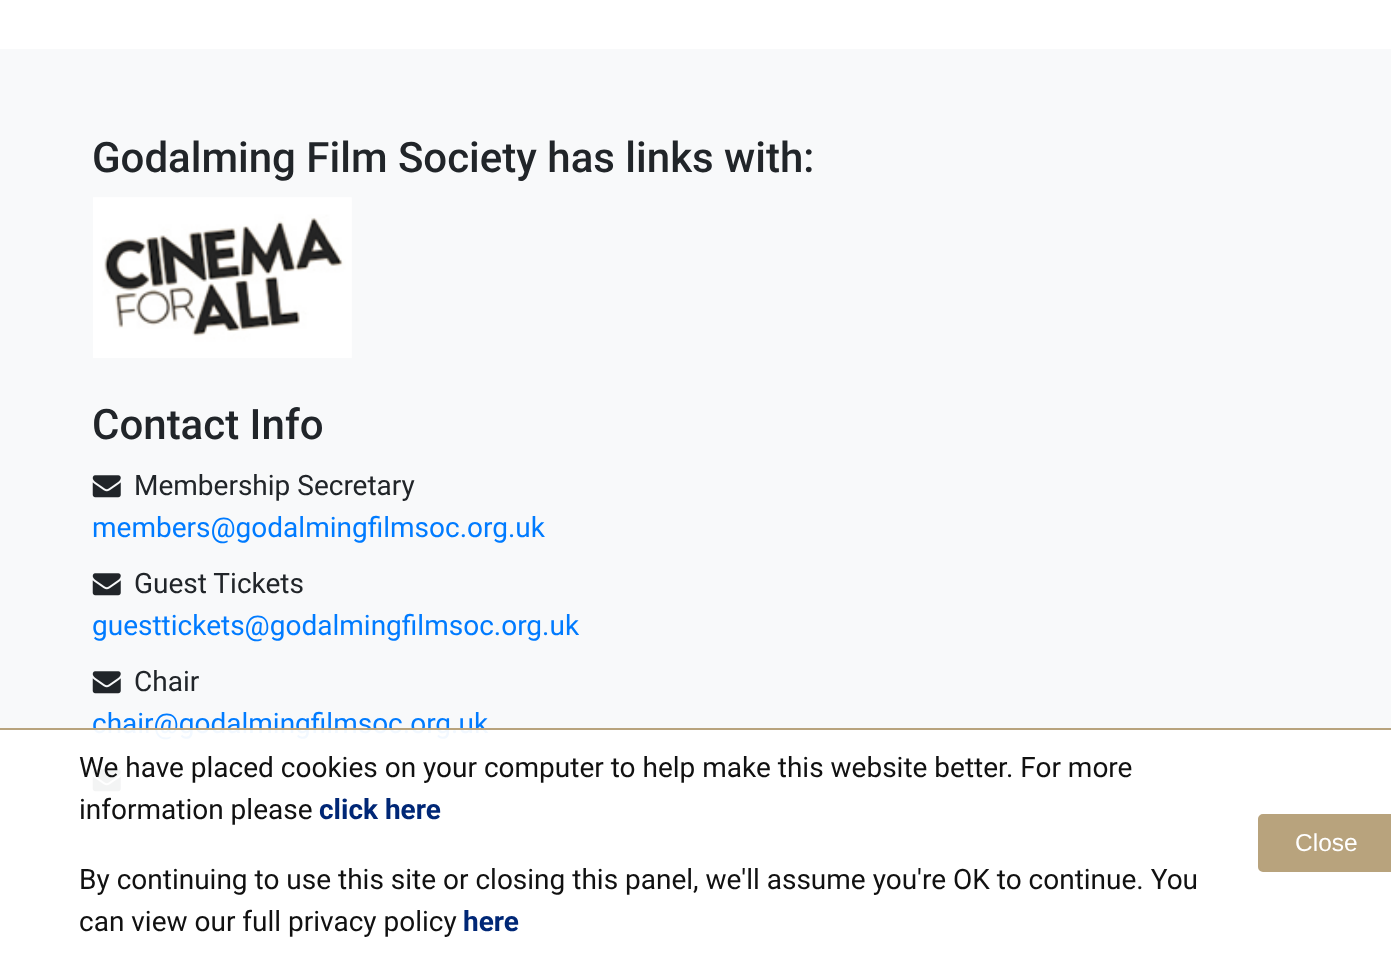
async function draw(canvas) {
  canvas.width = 1391;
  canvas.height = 980;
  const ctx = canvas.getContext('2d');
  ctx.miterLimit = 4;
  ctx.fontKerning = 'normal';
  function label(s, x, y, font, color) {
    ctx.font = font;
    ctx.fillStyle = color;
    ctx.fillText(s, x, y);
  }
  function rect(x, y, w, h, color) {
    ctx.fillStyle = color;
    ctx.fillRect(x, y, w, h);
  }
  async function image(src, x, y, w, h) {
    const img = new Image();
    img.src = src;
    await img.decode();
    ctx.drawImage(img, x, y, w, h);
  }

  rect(0, 0, 1391, 980, '#fff');
  rect(0, 49, 1391, 931, '#f8f9fa');
  label('Godalming Film Society has links with:', 92, 172, '500 42px Roboto', '#212529');
  await image('assets/img1.png', 93, 197, 259, 161);
  label('Contact Info', 92, 439, '500 42px Roboto', '#212529');
  await image('assets/img2.png', 92, 475, 29, 23);
  label('Membership Secretary', 134, 495, '28px Roboto', '#212529');
  label('members@godalmingfilmsoc.org.uk', 92, 537, '28px Roboto', '#007bff');
  await image('assets/img2.png', 92, 573, 29, 23);
  label('Guest Tickets', 134, 593, '28px Roboto', '#212529');
  label('guesttickets@godalmingfilmsoc.org.uk', 92, 635, '28px Roboto', '#007bff');
  await image('assets/img2.png', 92, 671, 29, 23);
  label('Chair', 134, 691, '28px Roboto', '#212529');
  label('chair@godalmingfilmsoc.org.uk', 92, 733, '28px Roboto', '#007bff');
  await image('assets/img2.png', 92, 769, 29, 23);
  rect(0, 730, 1391, 250, '#fffffff2');
  rect(0, 728, 1391, 2, '#b8a37d');
  label('We have placed cookies on your computer to help make this website better. For more', 79, 777, '28px Roboto', '#111');
  label('information please', 79, 819, '28px Roboto', '#111');
  label('click here', 319, 819, 'bold 28px Roboto', '#002776');
  label('By continuing to use this site or closing this panel, we\'ll assume you\'re OK to continue. You', 79, 889, '28px Roboto', '#111');
  label('can view our full privacy policy', 79, 931, '28px Roboto', '#111');
  label('here', 463, 931, 'bold 28px Roboto', '#002776');
  ctx.fillStyle = '#b8a37d';
  ctx.beginPath();
  ctx.roundRect(1259, 815, 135, 56, 4);
  ctx.fill();
  ctx.strokeStyle = '#b8a37d';
  ctx.lineWidth = 2;
  ctx.stroke();
  label('Close', 1295, 851, '24.5px Liberation Sans', '#fff');
}

draw(document.querySelector('canvas'));
